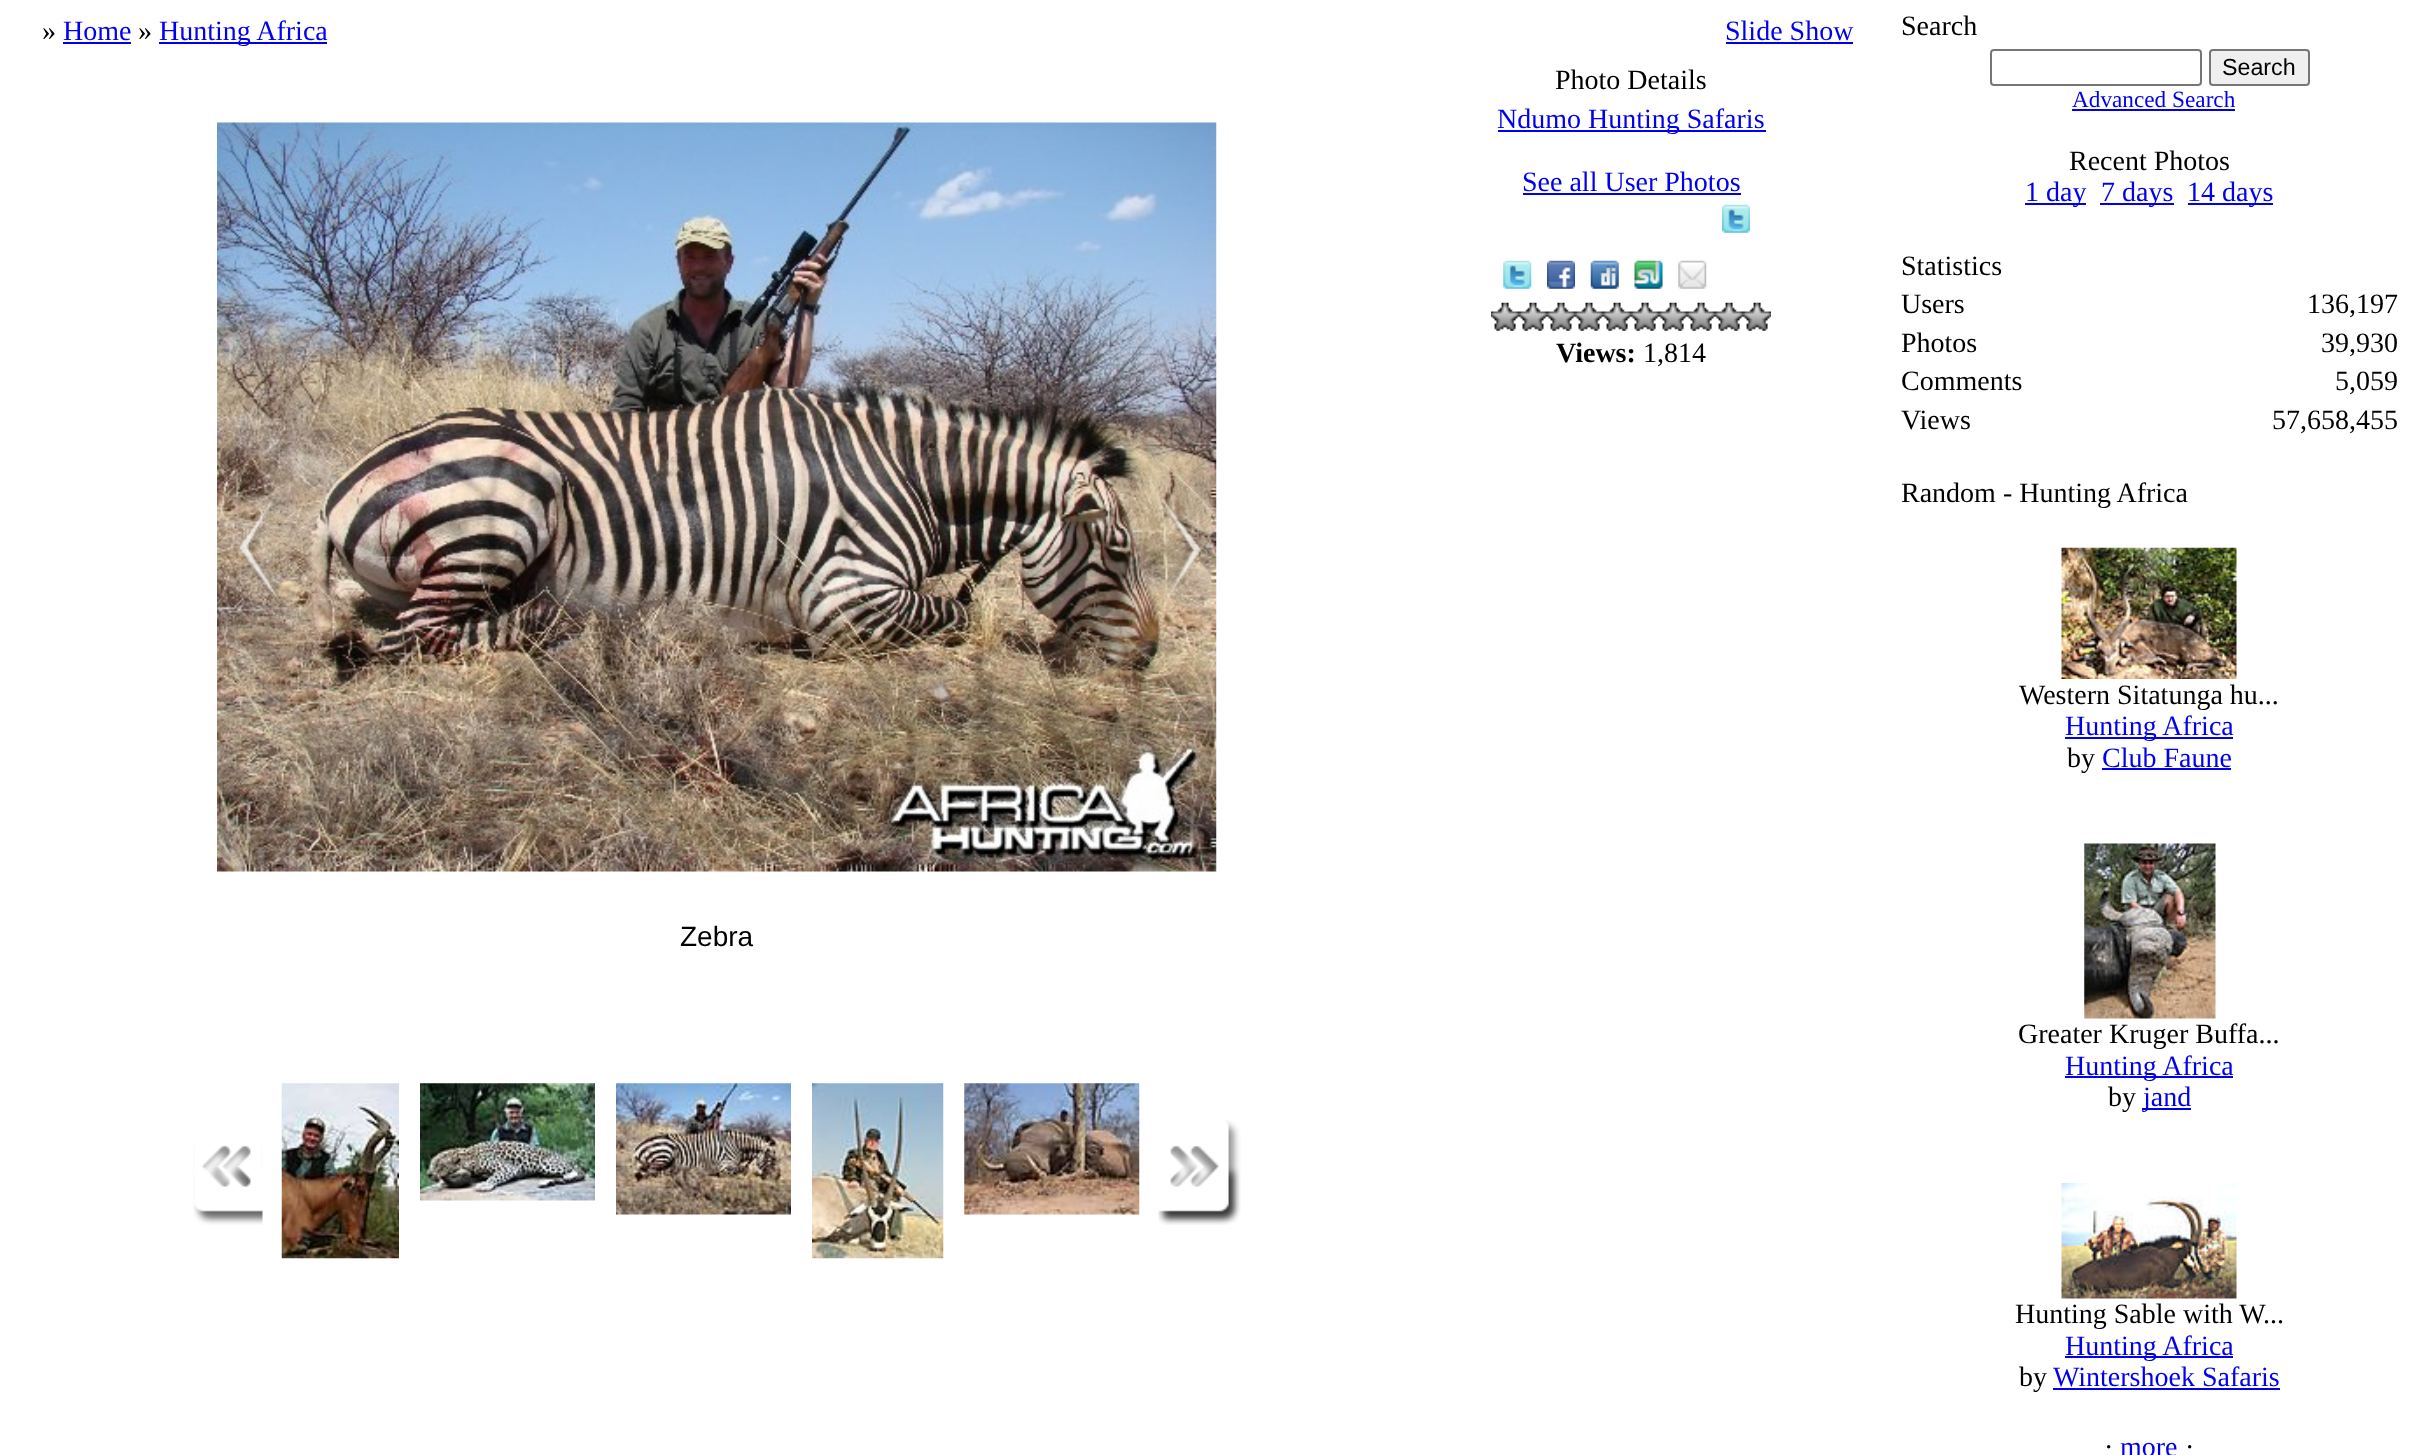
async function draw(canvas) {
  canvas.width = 2434;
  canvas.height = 1455;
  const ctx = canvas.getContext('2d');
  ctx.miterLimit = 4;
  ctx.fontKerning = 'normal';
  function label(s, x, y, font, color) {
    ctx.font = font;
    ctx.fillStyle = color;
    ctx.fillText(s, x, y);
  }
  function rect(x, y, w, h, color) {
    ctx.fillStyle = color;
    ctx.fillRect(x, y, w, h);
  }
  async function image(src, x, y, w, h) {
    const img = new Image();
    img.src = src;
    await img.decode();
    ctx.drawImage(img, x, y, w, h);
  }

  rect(0, 0, 2434, 1455, '#fff');
  label('»', 42, 40, '28px Liberation Serif', '#000');
  label('Home', 63, 40, '28px Liberation Serif', '#00e');
  rect(63, 42, 68, 2, '#00e');
  label('»', 138, 40, '28px Liberation Serif', '#000');
  rect(159, 42, 168, 2, '#00e');
  label('Hunting Africa', 159, 40, '28px Liberation Serif', '#00e');
  label('Slide Show', 1725, 40, '28px Liberation Serif', '#00e');
  rect(1726, 42, 127, 2, '#00e');
  label('Photo Details', 1555, 89, '28px Liberation Serif', '#000');
  rect(1498, 130, 268, 2, '#00e');
  label('Ndumo Hunting Safaris', 1497, 128, '28px Liberation Serif', '#00e');
  label('See all User Photos', 1522, 191, '28px Liberation Serif', '#00e');
  rect(1523, 193, 218, 2, '#00e');
  await image('assets/img1.png', 1722, 204, 28, 29);
  await image('assets/img2.png', 1503, 260, 29, 29);
  await image('assets/img3.png', 1547, 260, 28, 29);
  await image('assets/img4.png', 1590, 260, 29, 29);
  await image('assets/img5.png', 1634, 260, 29, 29);
  await image('assets/img6.png', 1678, 260, 29, 29);
  await image('assets/img7.png', 1491, 302, 28, 29);
  await image('assets/img8.png', 1519, 302, 28, 29);
  await image('assets/img9.png', 1547, 302, 28, 29);
  await image('assets/img8.png', 1575, 302, 28, 29);
  await image('assets/img7.png', 1603, 302, 28, 29);
  await image('assets/img7.png', 1631, 302, 28, 29);
  await image('assets/img7.png', 1659, 302, 28, 29);
  await image('assets/img7.png', 1687, 302, 28, 29);
  await image('assets/img7.png', 1715, 302, 28, 29);
  await image('assets/img7.png', 1743, 302, 28, 29);
  label('Views:', 1556, 362, 'bold 28px Liberation Serif', '#000');
  label('1,814', 1643, 362, '28px Liberation Serif', '#000');
  await image('assets/img10.png', 217, 122, 1000, 750);
  await image('assets/img11.png', 239, 497, 44, 106);
  await image('assets/img12.png', 1158, 497, 43, 104);
  label('Zebra', 680, 946, '28px Liberation Sans', '#000');
  await image('assets/img13.png', 193, 1145, 70, 80);
  await image('assets/img14.png', 281, 1083, 118, 176);
  await image('assets/img15.png', 420, 1083, 175, 118);
  await image('assets/img16.png', 616, 1083, 175, 132);
  await image('assets/img17.png', 812, 1083, 132, 176);
  await image('assets/img18.png', 964, 1083, 176, 132);
  await image('assets/img19.png', 1158, 1120, 83, 105);
  label('Search', 1901, 35, '28px Liberation Serif', '#000');
  ctx.beginPath();
  ctx.roundRect(1991, 50, 210, 35, 3);
  ctx.strokeStyle = '#767676';
  ctx.lineWidth = 2;
  ctx.stroke();
  ctx.fillStyle = '#efefef';
  ctx.beginPath();
  ctx.roundRect(2210, 50, 99, 35, 3);
  ctx.fill();
  ctx.stroke();
  label('Search', 2222, 75, '23.25px Liberation Sans', '#000');
  label('Advanced Search', 2072, 107, '23.25px Liberation Serif', '#00e');
  rect(2072, 109, 163, 2, '#00e');
  label('Recent Photos', 2069, 170, '28px Liberation Serif', '#000');
  rect(2025, 203, 61, 2, '#00e');
  label('1 day', 2025, 201, '28px Liberation Serif', '#00e');
  rect(2100, 203, 74, 2, '#00e');
  label('7 days', 2101, 201, '28px Liberation Serif', '#00e');
  rect(2188, 203, 85, 2, '#00e');
  label('14 days', 2187, 201, '28px Liberation Serif', '#00e');
  label('Statistics', 1901, 275, '28px Liberation Serif', '#000');
  label('Users', 1901, 313, '28px Liberation Serif', '#000');
  label('136,197', 2307, 313, '28px Liberation Serif', '#000');
  label('Photos', 1901, 352, '28px Liberation Serif', '#000');
  label('39,930', 2321, 352, '28px Liberation Serif', '#000');
  label('Comments', 1901, 390, '28px Liberation Serif', '#000');
  label('5,059', 2335, 390, '28px Liberation Serif', '#000');
  label('Views', 1901, 429, '28px Liberation Serif', '#000');
  label('57,658,455', 2272, 429, '28px Liberation Serif', '#000');
  label('Random - Hunting Africa', 1901, 502, '28px Liberation Serif', '#000');
  await image('assets/img20.png', 2061, 547, 176, 132);
  label('Western Sitatunga hu...', 2019, 704, '28px Liberation Serif', '#000');
  rect(2065, 737, 168, 2, '#00e');
  label('Hunting Africa', 2065, 735, '28px Liberation Serif', '#00e');
  label('by', 2067, 767, '28px Liberation Serif', '#000');
  label('Club Faune', 2102, 767, '28px Liberation Serif', '#00e');
  rect(2102, 768, 129, 2, '#00e');
  await image('assets/img21.png', 2084, 843, 132, 176);
  label('Greater Kruger Buffa...', 2018, 1043, '28px Liberation Serif', '#000');
  rect(2065, 1076, 168, 2, '#00e');
  label('Hunting Africa', 2065, 1075, '28px Liberation Serif', '#00e');
  label('by', 2108, 1106, '28px Liberation Serif', '#000');
  rect(2142, 1108, 49, 2, '#00e');
  label('jand', 2143, 1106, '28px Liberation Serif', '#00e');
  await image('assets/img22.png', 2061, 1183, 176, 116);
  label('Hunting Sable with W...', 2015, 1323, '28px Liberation Serif', '#000');
  rect(2065, 1356, 168, 2, '#00e');
  label('Hunting Africa', 2065, 1355, '28px Liberation Serif', '#00e');
  label('by', 2019, 1386, '28px Liberation Serif', '#000');
  rect(2053, 1388, 227, 2, '#00e');
  label('Wintershoek Safaris', 2053, 1386, '28px Liberation Serif', '#00e');
  label('·', 2104, 1456, '28px Liberation Serif', '#000');
  label('more', 2120, 1456, '28px Liberation Serif', '#00e');
  label('·', 2185, 1456, '28px Liberation Serif', '#000');
}

draw(document.querySelector('canvas'));
